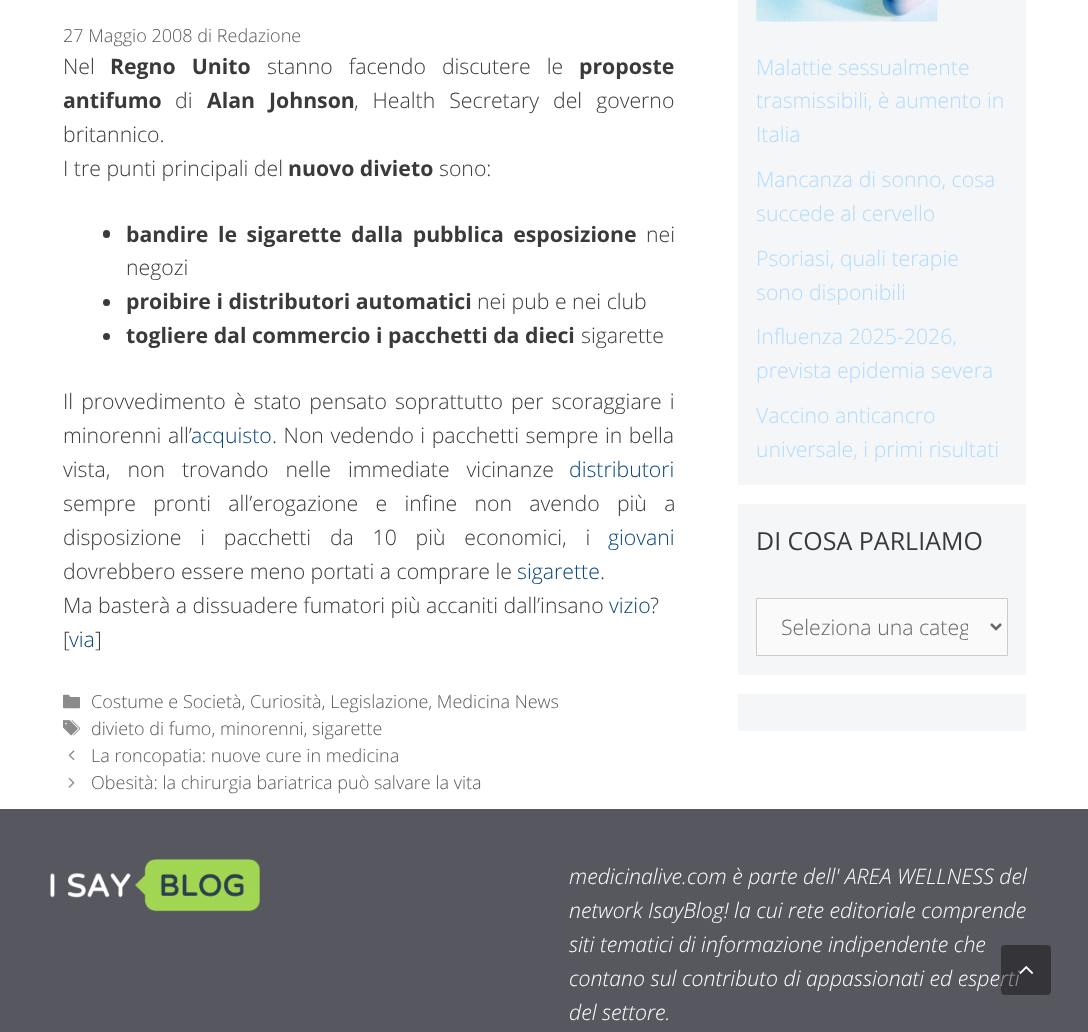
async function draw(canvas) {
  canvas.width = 1088;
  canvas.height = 1032;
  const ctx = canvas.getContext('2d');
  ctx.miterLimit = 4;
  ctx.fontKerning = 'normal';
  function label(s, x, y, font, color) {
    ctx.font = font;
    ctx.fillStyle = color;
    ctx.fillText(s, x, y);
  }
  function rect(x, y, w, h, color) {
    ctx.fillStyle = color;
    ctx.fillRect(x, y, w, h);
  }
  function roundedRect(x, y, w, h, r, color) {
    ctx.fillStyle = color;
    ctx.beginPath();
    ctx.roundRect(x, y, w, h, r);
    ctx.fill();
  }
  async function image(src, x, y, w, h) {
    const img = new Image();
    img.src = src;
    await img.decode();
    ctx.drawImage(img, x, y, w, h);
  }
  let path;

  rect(0, 0, 1088, 1032, '#fff');
  label('27 Maggio 2008 di Redazione', 63, 42, '300 18.05px Open Sans', '#595959');
  label('Nel', 63, 74, '300 21.25px Open Sans', '#3a3a3a');
  ctx.wordSpacing = '10.5px';
  label('Regno Unito', 110, 74, 'bold 21.25px Open Sans', '#3a3a3a');
  label('stanno facendo discutere le', 267, 74, '300 21.25px Open Sans', '#3a3a3a');
  ctx.wordSpacing = '0px';
  label('proposte', 579, 74, 'bold 21.25px Open Sans', '#3a3a3a');
  label('antifumo', 63, 108, 'bold 21.25px Open Sans', '#3a3a3a');
  label('di', 175, 108, '300 21.25px Open Sans', '#3a3a3a');
  ctx.wordSpacing = '8.5px';
  label('Alan Johnson', 207, 108, 'bold 21.25px Open Sans', '#3a3a3a');
  label(', Health Secretary del governo', 354, 108, '300 21.25px Open Sans', '#3a3a3a');
  ctx.wordSpacing = '0px';
  label('britannico.', 63, 142, '300 21.25px Open Sans', '#3a3a3a');
  label('I tre punti principali del', 63, 176, '300 21.25px Open Sans', '#3a3a3a');
  label('nuovo divieto', 288, 176, 'bold 21.25px Open Sans', '#3a3a3a');
  label('sono:', 439, 176, '300 21.25px Open Sans', '#3a3a3a');
  roundedRect(103, 230, 7, 8, 3.5, '#3a3a3a');
  ctx.wordSpacing = '4px';
  label('bandire le sigarette dalla pubblica esposizione', 126, 242, 'bold 21.25px Open Sans', '#3a3a3a');
  ctx.wordSpacing = '0px';
  label('nei', 646, 242, '300 21.25px Open Sans', '#3a3a3a');
  label('negozi', 126, 275, '300 21.25px Open Sans', '#3a3a3a');
  ctx.beginPath();
  ctx.arc(106.5, 302.5, 3.5, 0, 2 * Math.PI);
  ctx.fill();
  label('proibire i distributori automatici', 126, 309, 'bold 21.25px Open Sans', '#3a3a3a');
  label('nei pub e nei club', 477, 309, '300 21.25px Open Sans', '#3a3a3a');
  ctx.beginPath();
  ctx.arc(106.5, 336.5, 3.5, 0, 2 * Math.PI);
  ctx.fill();
  label('togliere dal commercio i pacchetti da dieci', 126, 343, 'bold 21.25px Open Sans', '#3a3a3a');
  label('sigarette', 581, 343, '300 21.25px Open Sans', '#3a3a3a');
  ctx.wordSpacing = '2.5px';
  label('Il provvedimento è stato pensato soprattutto per scoraggiare i', 63, 409, '300 21.25px Open Sans', '#3a3a3a');
  ctx.wordSpacing = '1px';
  label('minorenni all’', 63, 443, '300 21.25px Open Sans', '#3a3a3a');
  ctx.wordSpacing = '0px';
  label('acquisto', 191, 443, '300 21.25px Open Sans', '#06447a');
  ctx.wordSpacing = '1px';
  label('. Non vedendo i pacchetti sempre in bella', 272, 443, '300 21.25px Open Sans', '#3a3a3a');
  ctx.wordSpacing = '11.5px';
  label('vista, non trovando nelle immediate vicinanze', 63, 477, '300 21.25px Open Sans', '#3a3a3a');
  ctx.wordSpacing = '0px';
  label('distributori', 569, 477, '300 21.25px Open Sans', '#06447a');
  ctx.wordSpacing = '11.75px';
  label('sempre pronti all’erogazione e infine non avendo più a', 63, 511, '300 21.25px Open Sans', '#3a3a3a');
  ctx.wordSpacing = '13.25px';
  label('disposizione i pacchetti da 10 più economici, i', 63, 545, '300 21.25px Open Sans', '#3a3a3a');
  ctx.wordSpacing = '0px';
  label('giovani', 608, 545, '300 21.25px Open Sans', '#06447a');
  label('dovrebbero essere meno portati a comprare le', 63, 579, '300 21.25px Open Sans', '#3a3a3a');
  label('sigarette', 517, 579, '300 21.25px Open Sans', '#06447a');
  label('.', 600, 579, '300 21.25px Open Sans', '#3a3a3a');
  label('Ma basterà a dissuadere fumatori più accaniti dall’insano', 63, 613, '300 21.25px Open Sans', '#3a3a3a');
  label('vizio', 609, 613, '300 21.25px Open Sans', '#06447a');
  label('?', 650, 613, '300 21.25px Open Sans', '#3a3a3a');
  label('[', 63, 647, '300 21.25px Open Sans', '#3a3a3a');
  label('via', 69, 647, '300 21.25px Open Sans', '#06447a');
  label(']', 95, 647, '300 21.25px Open Sans', '#3a3a3a');
  await image('assets/img1.png', 63, 694, 17, 15);
  label('Costume e Società, Curiosità, Legislazione, Medicina News', 91, 708, '300 18.05px Open Sans', '#595959');
  await image('assets/img2.png', 63, 720, 17, 16);
  label('divieto di fumo, minorenni, sigarette', 91, 735, '300 18.05px Open Sans', '#595959');
  await image('assets/img3.png', 68, 750, 7, 11);
  label('La roncopatia: nuove cure in medicina', 91, 762, '300 18.05px Open Sans', '#595959');
  await image('assets/img4.png', 68, 777, 7, 11);
  label('Obesità: la chirurgia bariatrica può salvare la vita', 91, 789, '300 18.05px Open Sans', '#595959');
  rect(738, 0, 288, 485, '#f4f6f7');
  await image('assets/img5.png', 756, 0, 182, 22);
  label('Malattie sessualmente', 756, 75, '300 21.25px Open Sans', '#b2dbff');
  label('trasmissibili, è aumento in', 756, 108, '300 21.25px Open Sans', '#b2dbff');
  label('Italia', 756, 142, '300 21.25px Open Sans', '#b2dbff');
  label('Mancanza di sonno, cosa', 756, 187, '300 21.25px Open Sans', '#b2dbff');
  label('succede al cervello', 756, 221, '300 21.25px Open Sans', '#b2dbff');
  label('Psoriasi, quali terapie', 756, 266, '300 21.25px Open Sans', '#b2dbff');
  label('sono disponibili', 756, 300, '300 21.25px Open Sans', '#b2dbff');
  label('Influenza 2025-2026,', 756, 344, '300 21.25px Open Sans', '#b2dbff');
  label('prevista epidemia severa', 756, 378, '300 21.25px Open Sans', '#b2dbff');
  label('Vaccino anticancro', 756, 423, '300 21.25px Open Sans', '#b2dbff');
  label('universale, i primi risultati', 756, 457, '300 21.25px Open Sans', '#b2dbff');
  rect(738, 504, 288, 171, '#f4f6f7');
  label('DI COSA PARLIAMO', 756, 550, '25px Open Sans', '#3a3a3a');
  ctx.fillStyle = '#fafafa';
  ctx.beginPath();
  ctx.rect(756.5, 598.5, 251, 57);
  ctx.fill();
  ctx.strokeStyle = '#ccc';
  ctx.stroke();
  path = new Path2D('M991 624L996 629L1001 624');
  ctx.strokeStyle = '#666';
  ctx.lineWidth = 2.5;
  ctx.stroke(path);
  ctx.save();
  ctx.beginPath();
  ctx.rect(781, 611, 187, 32);
  ctx.clip();
  label('Seleziona una categ', 781, 635, '300 21.25px Open Sans', '#666');
  ctx.restore();
  rect(738, 694, 288, 37, '#f4f6f7');
  rect(0, 809, 1088, 223, '#575760');
  await image('assets/img6.png', 50, 859, 210, 53);
  label('medicinalive.com è parte dell\' AREA WELLNESS del', 569, 884, 'italic 300 21.25px Open Sans', '#fff');
  label('network IsayBlog! la cui rete editoriale comprende', 569, 918, 'italic 300 21.25px Open Sans', '#fff');
  label('siti tematici di informazione indipendente che', 569, 952, 'italic 300 21.25px Open Sans', '#fff');
  label('contano sul contributo di appassionati ed esperti', 569, 986, 'italic 300 21.25px Open Sans', '#fff');
  label('del settore.', 569, 1020, 'italic 300 21.25px Open Sans', '#fff');
  roundedRect(1001, 945, 50, 50, 4, '#00000066');
  await image('assets/img7.png', 1019, 966, 15, 8);
}

draw(document.querySelector('canvas'));
